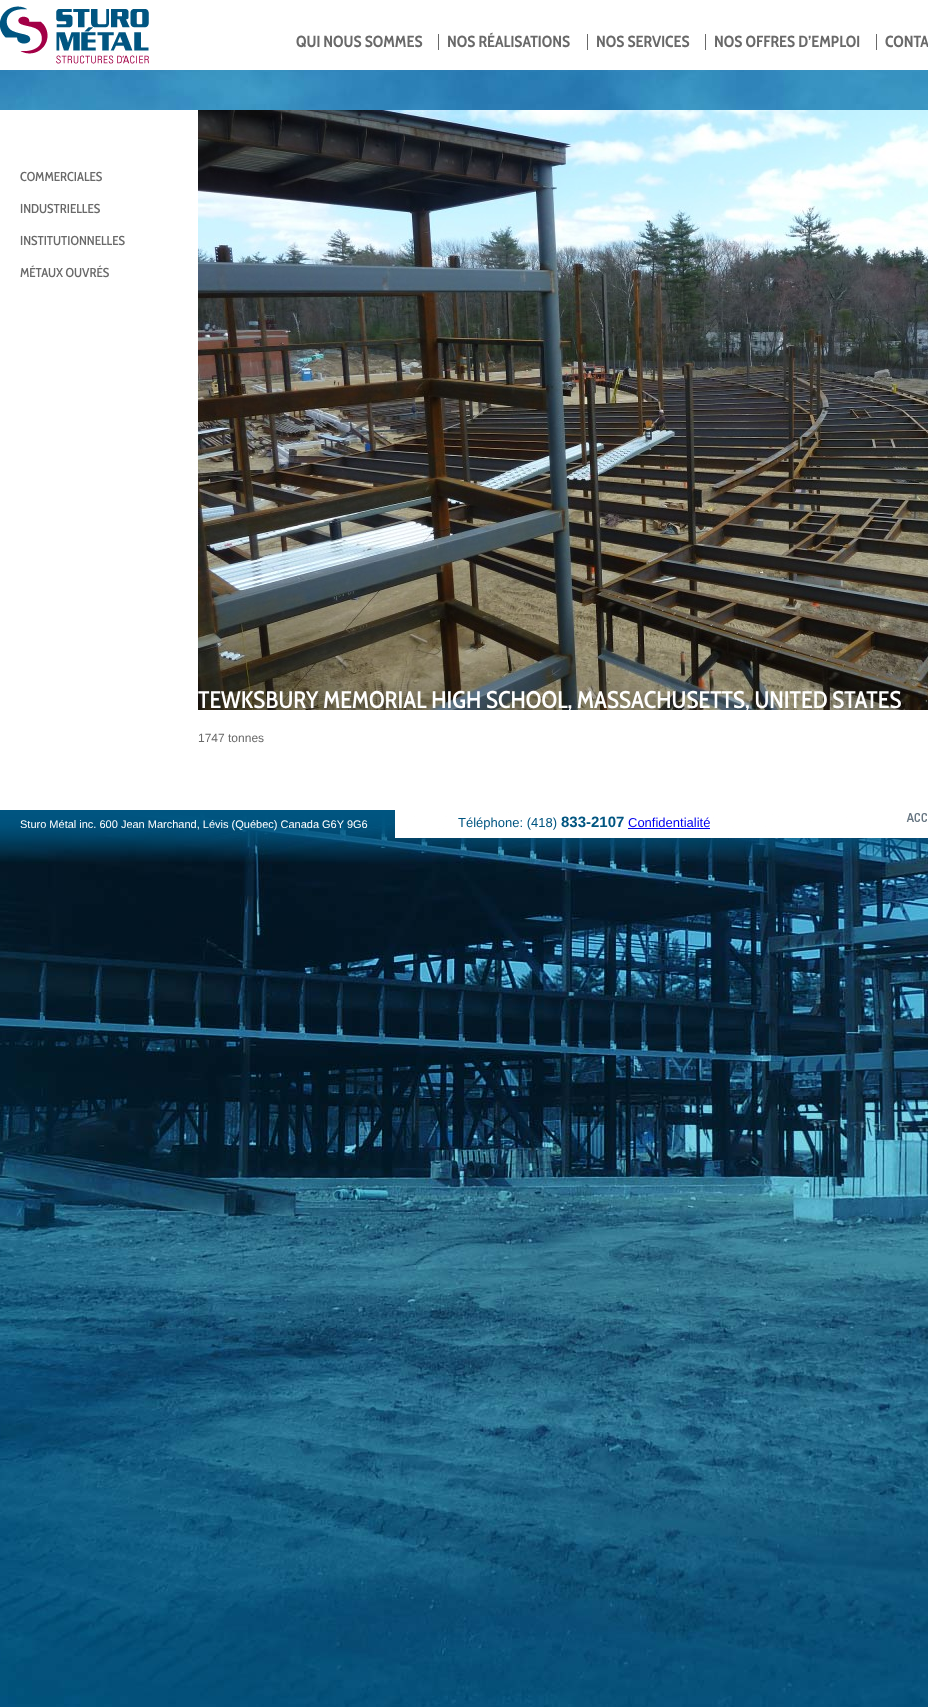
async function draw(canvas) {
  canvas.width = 928;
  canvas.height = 1707;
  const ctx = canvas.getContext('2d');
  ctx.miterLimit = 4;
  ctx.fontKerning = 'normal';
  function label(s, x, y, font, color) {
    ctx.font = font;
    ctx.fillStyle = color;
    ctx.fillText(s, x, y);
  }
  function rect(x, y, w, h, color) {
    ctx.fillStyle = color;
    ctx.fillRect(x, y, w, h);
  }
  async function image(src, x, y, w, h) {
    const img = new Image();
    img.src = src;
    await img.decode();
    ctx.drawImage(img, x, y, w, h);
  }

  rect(0, 0, 928, 1707, '#fff');
  await image('assets/img1.png', 0, 70, 928, 1637);
  await image('assets/img2.png', 0, 6, 149, 58);
  rect(438, 34, 1, 16, '#696969');
  label('QUI NOUS SOMMES', 296, 47, 'bold 16px Cabin Condensed', '#696969');
  rect(587, 34, 1, 16, '#696969');
  label('NOS RÉALISATIONS', 447, 47, 'bold 16px Cabin Condensed', '#696969');
  rect(705, 34, 1, 16, '#696969');
  label('NOS SERVICES', 596, 47, 'bold 16px Cabin Condensed', '#696969');
  rect(876, 34, 1, 16, '#696969');
  label('NOS OFFRES D’EMPLOI', 714, 47, 'bold 16px Cabin Condensed', '#696969');
  label('CONTA', 885, 47, 'bold 16px Cabin Condensed', '#696969');
  rect(0, 110, 928, 700, '#fff');
  label('COMMERCIALES', 20, 181, '500 13px Cabin Condensed', '#696969');
  label('INDUSTRIELLES', 20, 213, '500 13px Cabin Condensed', '#696969');
  label('INSTITUTIONNELLES', 20, 245, '500 13px Cabin Condensed', '#696969');
  label('MÉTAUX OUVRÉS', 20, 277, '500 13px Cabin Condensed', '#696969');
  await image('assets/img3.png', 198, 110, 730, 600);
  label('TEWKSBURY MEMORIAL HIGH SCHOOL, MASSACHUSETTS, UNITED STATES', 198, 708, '500 24px Cabin Condensed', '#fff');
  label('1747 tonnes', 198, 742, '12px Liberation Sans', '#696969');
  await image('assets/img4.png', 0, 810, 928, 52);
  label('Sturo Métal inc. 600 Jean Marchand, Lévis (Québec) Canada G6Y 9G6', 20, 828, '11px Liberation Sans', '#fff');
  label('Téléphone: (418)', 458, 827, '13px Liberation Sans', '#005581');
  label('833-2107', 561, 827, 'bold 15px Liberation Sans', '#005581');
  label('Confidentialité', 628, 827, '13px Liberation Sans', '#00e');
  rect(628, 828, 82, 1, '#00e');
  await image('assets/img5.png', 880, 810, 48, 12);
}

draw(document.querySelector('canvas'));
